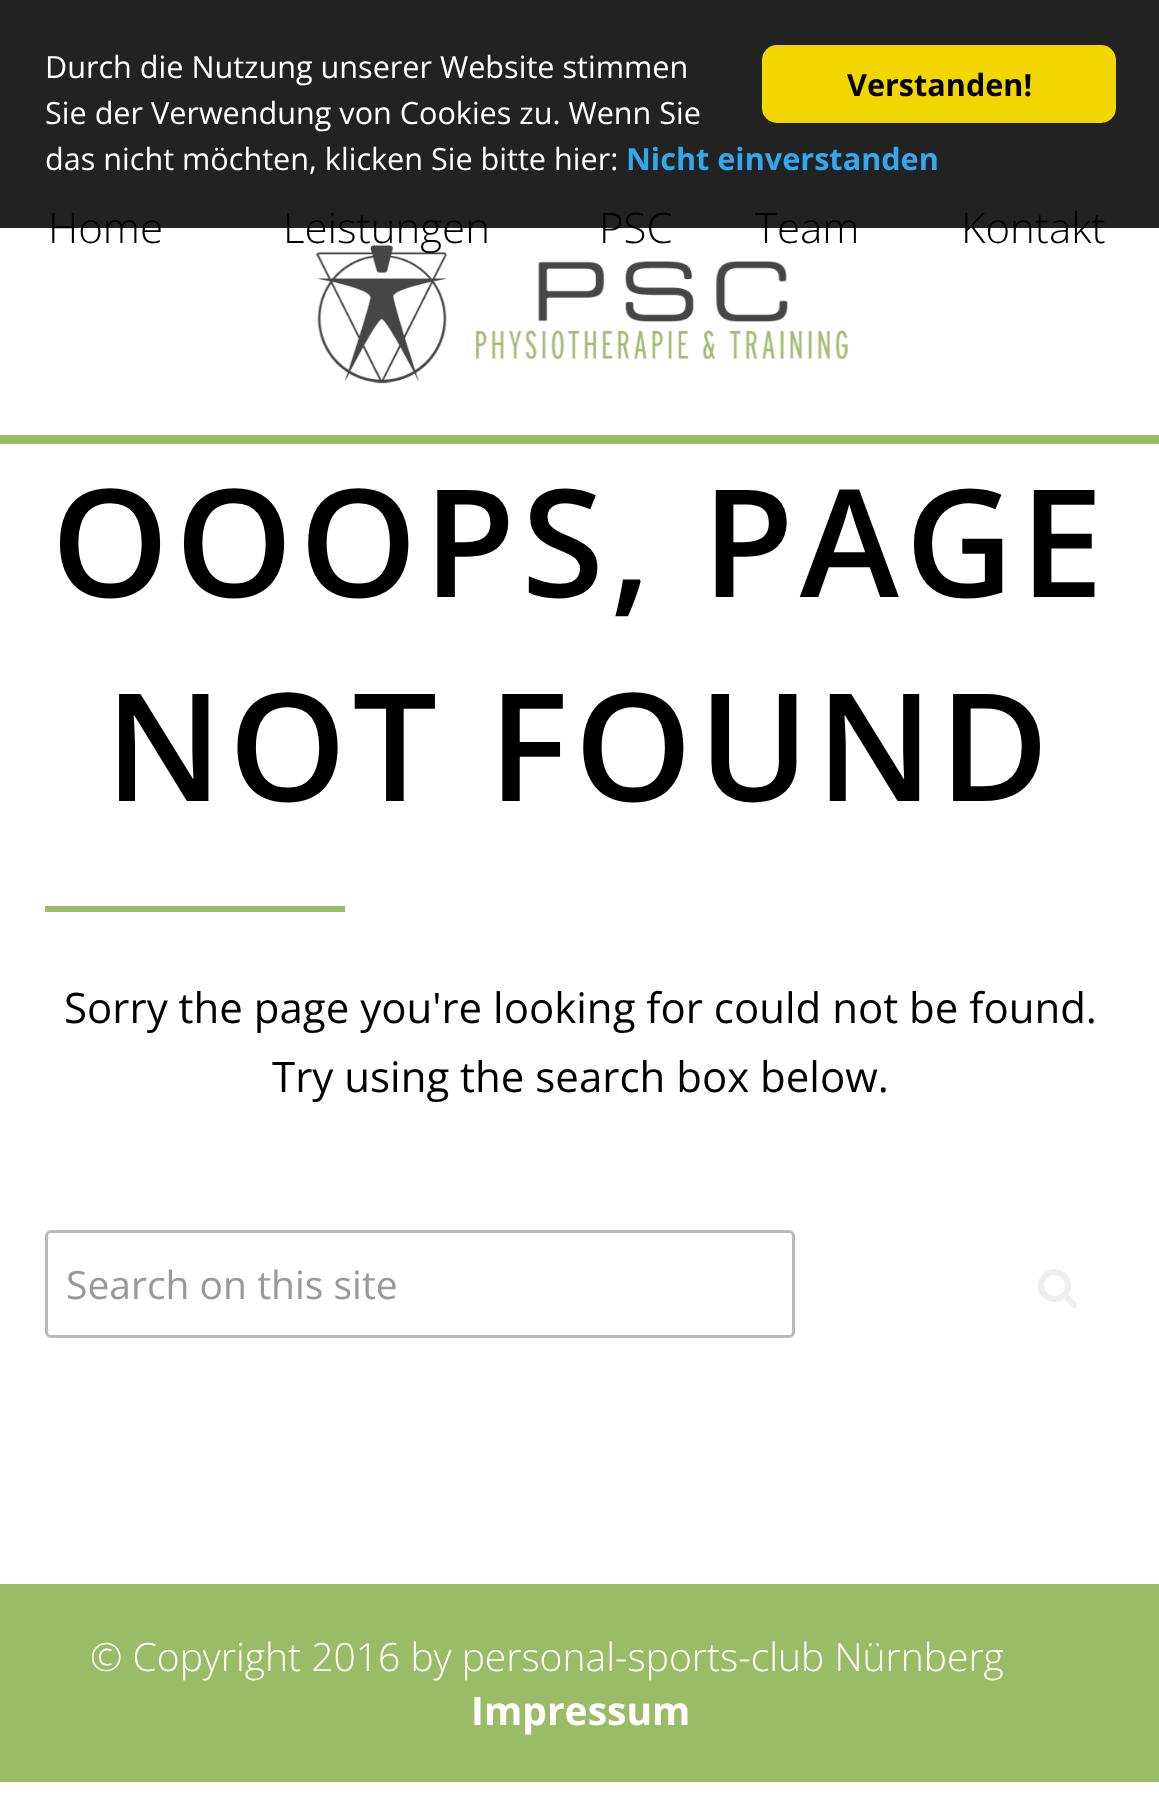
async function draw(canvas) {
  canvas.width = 1159;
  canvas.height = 1820;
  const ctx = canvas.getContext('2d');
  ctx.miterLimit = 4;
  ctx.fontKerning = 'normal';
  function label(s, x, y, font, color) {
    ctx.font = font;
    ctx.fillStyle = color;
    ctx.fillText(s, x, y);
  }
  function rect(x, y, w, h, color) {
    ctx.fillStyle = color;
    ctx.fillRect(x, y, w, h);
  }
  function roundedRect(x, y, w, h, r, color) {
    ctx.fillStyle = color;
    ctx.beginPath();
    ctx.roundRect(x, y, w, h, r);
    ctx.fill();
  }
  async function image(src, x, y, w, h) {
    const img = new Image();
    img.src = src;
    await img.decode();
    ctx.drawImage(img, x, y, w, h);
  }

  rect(0, 0, 1159, 1820, '#fff');
  rect(0, 0, 1159, 228, '#222');
  label('Durch die Nutzung unserer Website stimmen', 45, 78, '30.6px Open Sans', '#fff');
  label('Sie der Verwendung von Cookies zu. Wenn Sie', 45, 124, '30.6px Open Sans', '#fff');
  label('das nicht möchten, klicken Sie bitte hier:', 45, 170, '30.6px Open Sans', '#fff');
  label('Nicht einverstanden', 626, 170, 'bold 30.6px Open Sans', '#31a8f0');
  roundedRect(762, 45, 354, 78, 15, '#f1d600');
  label('Verstanden!', 847, 96, 'bold 30.6px Open Sans', '#000');
  label('Home', 48, 243, '300 42px Open Sans', '#000');
  await image('assets/img1.png', 315, 245, 534, 139);
  label('Leistungen', 283, 243, '300 42px Open Sans', '#000');
  label('PSC', 599, 243, '300 42px Open Sans', '#000');
  label('Team', 755, 243, '300 42px Open Sans', '#000');
  label('Kontakt', 961, 243, '300 42px Open Sans', '#000');
  rect(0, 435, 1159, 9, '#9bbc66');
  ctx.letterSpacing = '6px';
  label('OOOPS, PAGE', 51, 597, '600 150px Open Sans', '#000');
  label('NOT FOUND', 105, 801, '600 150px Open Sans', '#000');
  rect(45, 906, 300, 6, '#9bbc66');
  ctx.letterSpacing = '0px';
  label('Sorry the page you\'re looking for could not be found.', 64, 1023, '42px Open Sans', '#000');
  label('Try using the search box below.', 272, 1092, '42px Open Sans', '#000');
  ctx.beginPath();
  ctx.roundRect(46.5, 1231.5, 747, 105, 4.5);
  ctx.strokeStyle = '#b9b9b9';
  ctx.lineWidth = 3;
  ctx.stroke();
  label('Search on this site', 66, 1299, '39px Open Sans', '#999');
  await image('assets/img2.png', 1038, 1269, 39, 39);
  rect(0, 1584, 1159, 198, '#9bbc66');
  label('© Copyright 2016 by personal-sports-club Nürnberg', 90, 1671, '300 39px Open Sans', '#fff');
  label('Impressum', 471, 1725, 'bold 39px Open Sans', '#fff');
}

draw(document.querySelector('canvas'));
